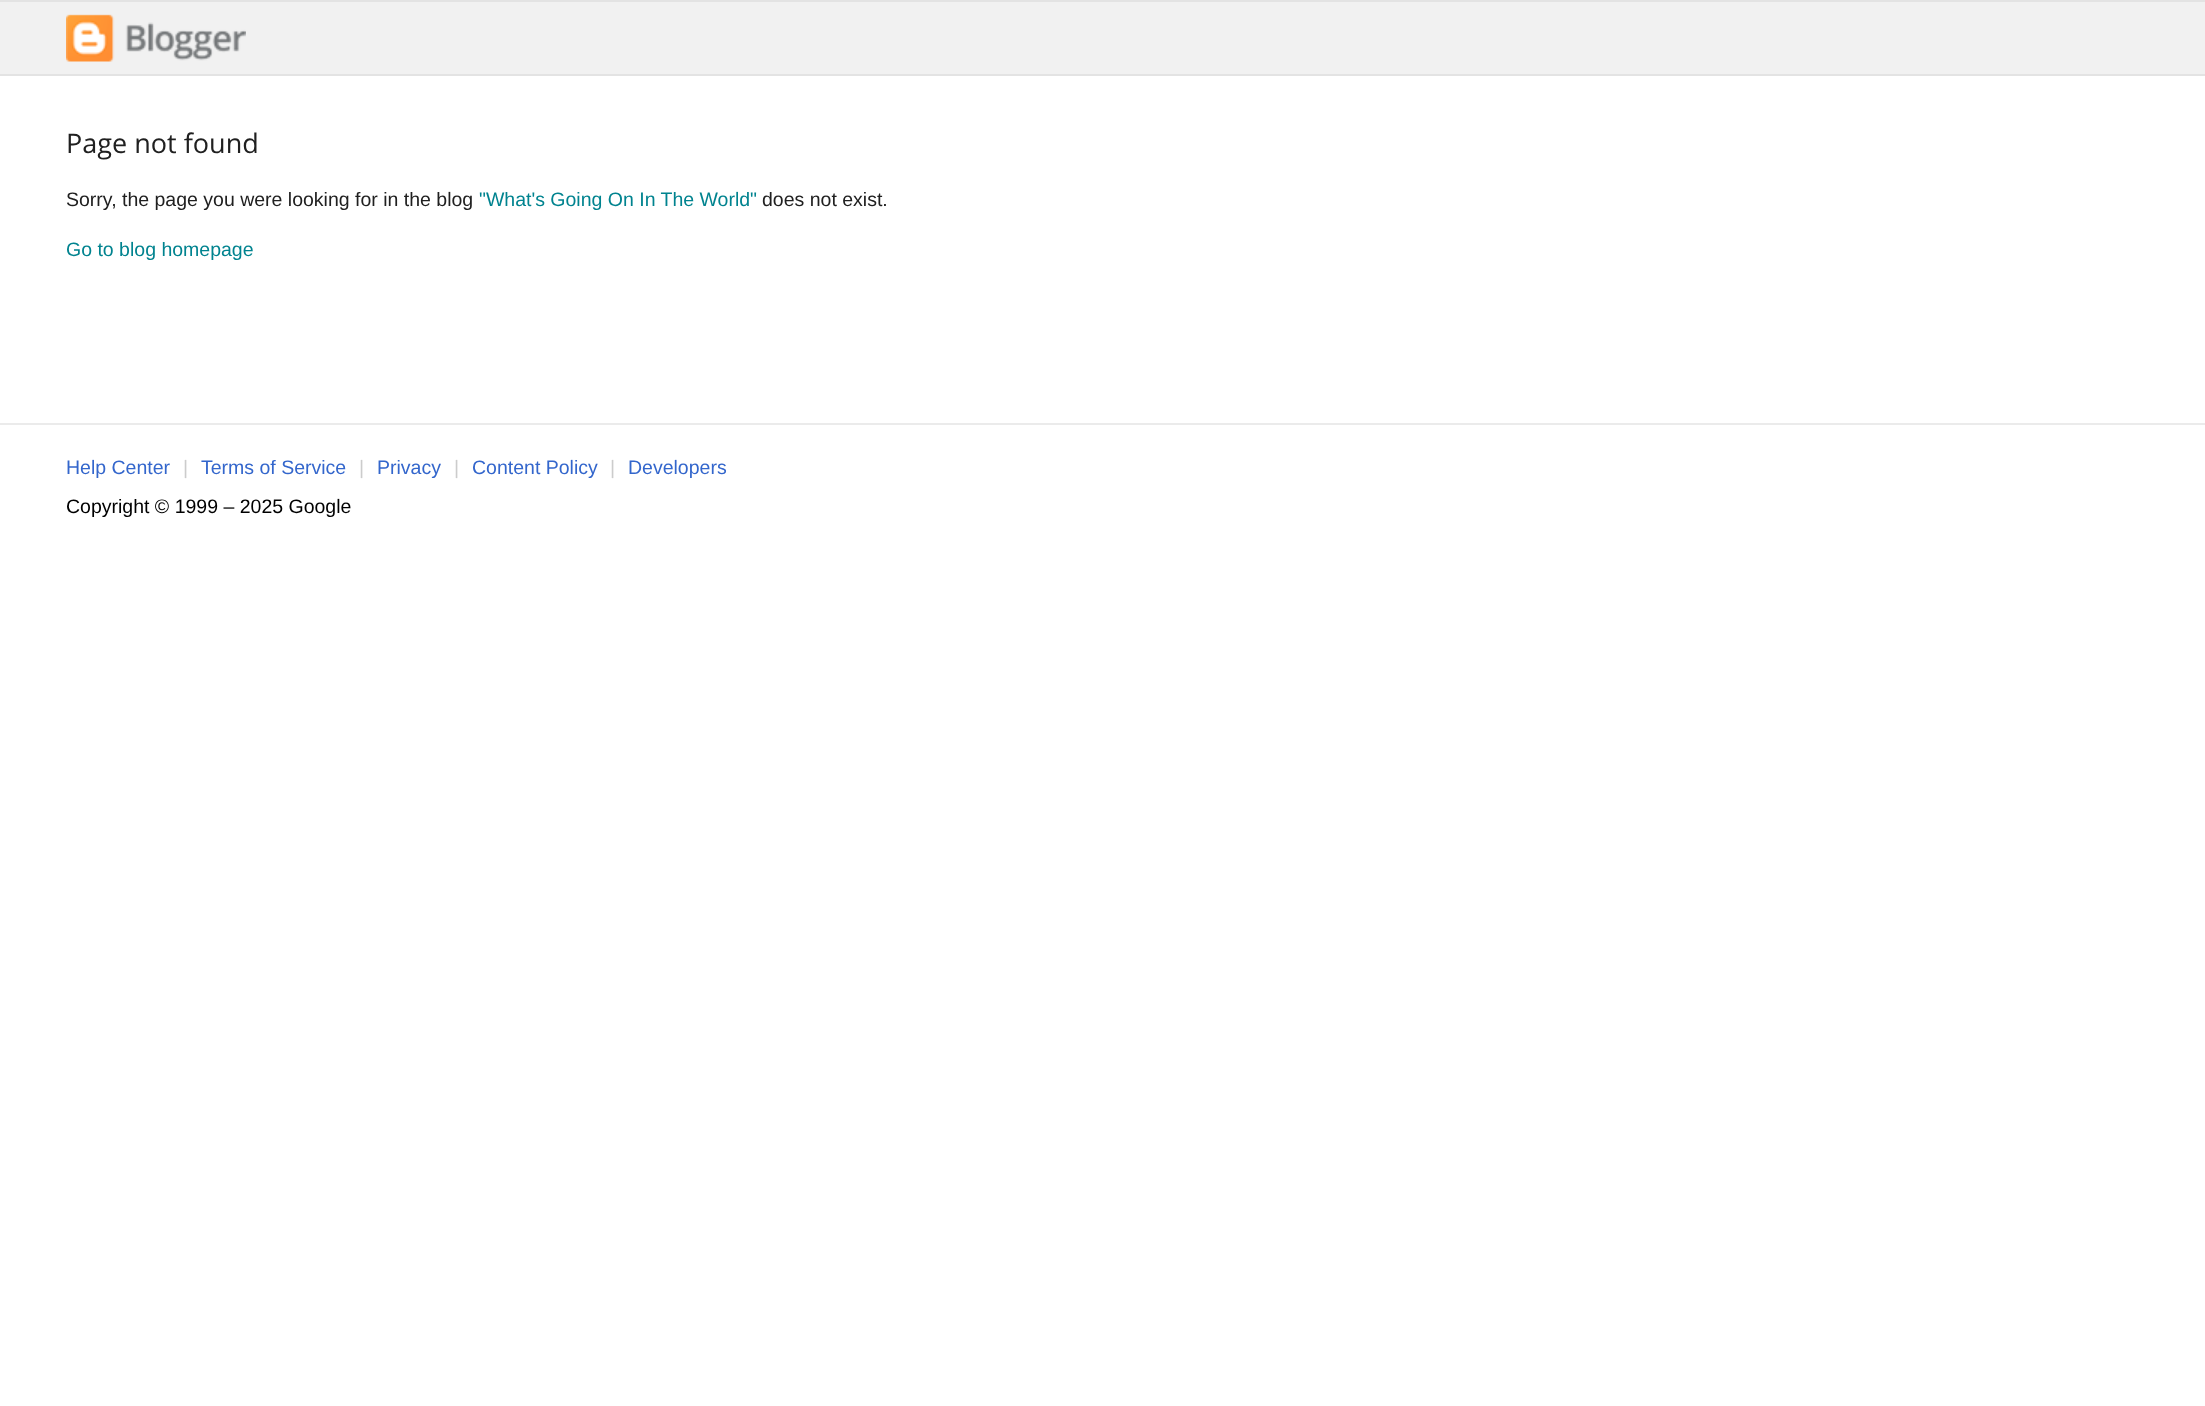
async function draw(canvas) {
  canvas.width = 2205;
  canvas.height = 1406;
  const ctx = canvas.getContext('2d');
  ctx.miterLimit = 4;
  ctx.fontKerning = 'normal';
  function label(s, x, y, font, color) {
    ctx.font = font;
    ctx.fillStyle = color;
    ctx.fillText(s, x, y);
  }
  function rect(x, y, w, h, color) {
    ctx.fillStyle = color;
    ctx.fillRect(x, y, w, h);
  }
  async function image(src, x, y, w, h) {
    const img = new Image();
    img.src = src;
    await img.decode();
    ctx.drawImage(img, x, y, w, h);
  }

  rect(0, 0, 2205, 1406, '#fff');
  rect(0, 2, 2205, 72, '#f1f1f1');
  rect(0, 0, 2205, 2, '#e3e3e3');
  rect(0, 74, 2205, 2, '#e3e3e3');
  await image('assets/img1.png', 66, 14, 180, 48);
  label('Page not found', 66, 153, '27px Open Sans', '#202020');
  label('Sorry, the page you were looking for in the blog', 66, 206, '19.5px Liberation Sans', '#202020');
  label('"What\'s Going On In The World"', 479, 206, '19.5px Liberation Sans', '#00838f');
  label('does not exist.', 762, 206, '19.5px Liberation Sans', '#202020');
  label('Go to blog homepage', 66, 256, '19.5px Liberation Sans', '#00838f');
  rect(0, 423, 2205, 2, '#ebebeb');
  label('Help Center', 66, 474, '19.5px Liberation Sans', '#36c');
  label('|', 183, 474, '19.5px Liberation Sans', '#ccc');
  label('Terms of Service', 201, 474, '19.5px Liberation Sans', '#36c');
  label('|', 359, 474, '19.5px Liberation Sans', '#ccc');
  label('Privacy', 377, 474, '19.5px Liberation Sans', '#36c');
  label('|', 454, 474, '19.5px Liberation Sans', '#ccc');
  label('Content Policy', 472, 474, '19.5px Liberation Sans', '#36c');
  label('|', 610, 474, '19.5px Liberation Sans', '#ccc');
  label('Developers', 628, 474, '19.5px Liberation Sans', '#36c');
  label('Copyright © 1999 – 2025 Google', 66, 513, '19.5px Liberation Sans', '#000');
}

draw(document.querySelector('canvas'));
